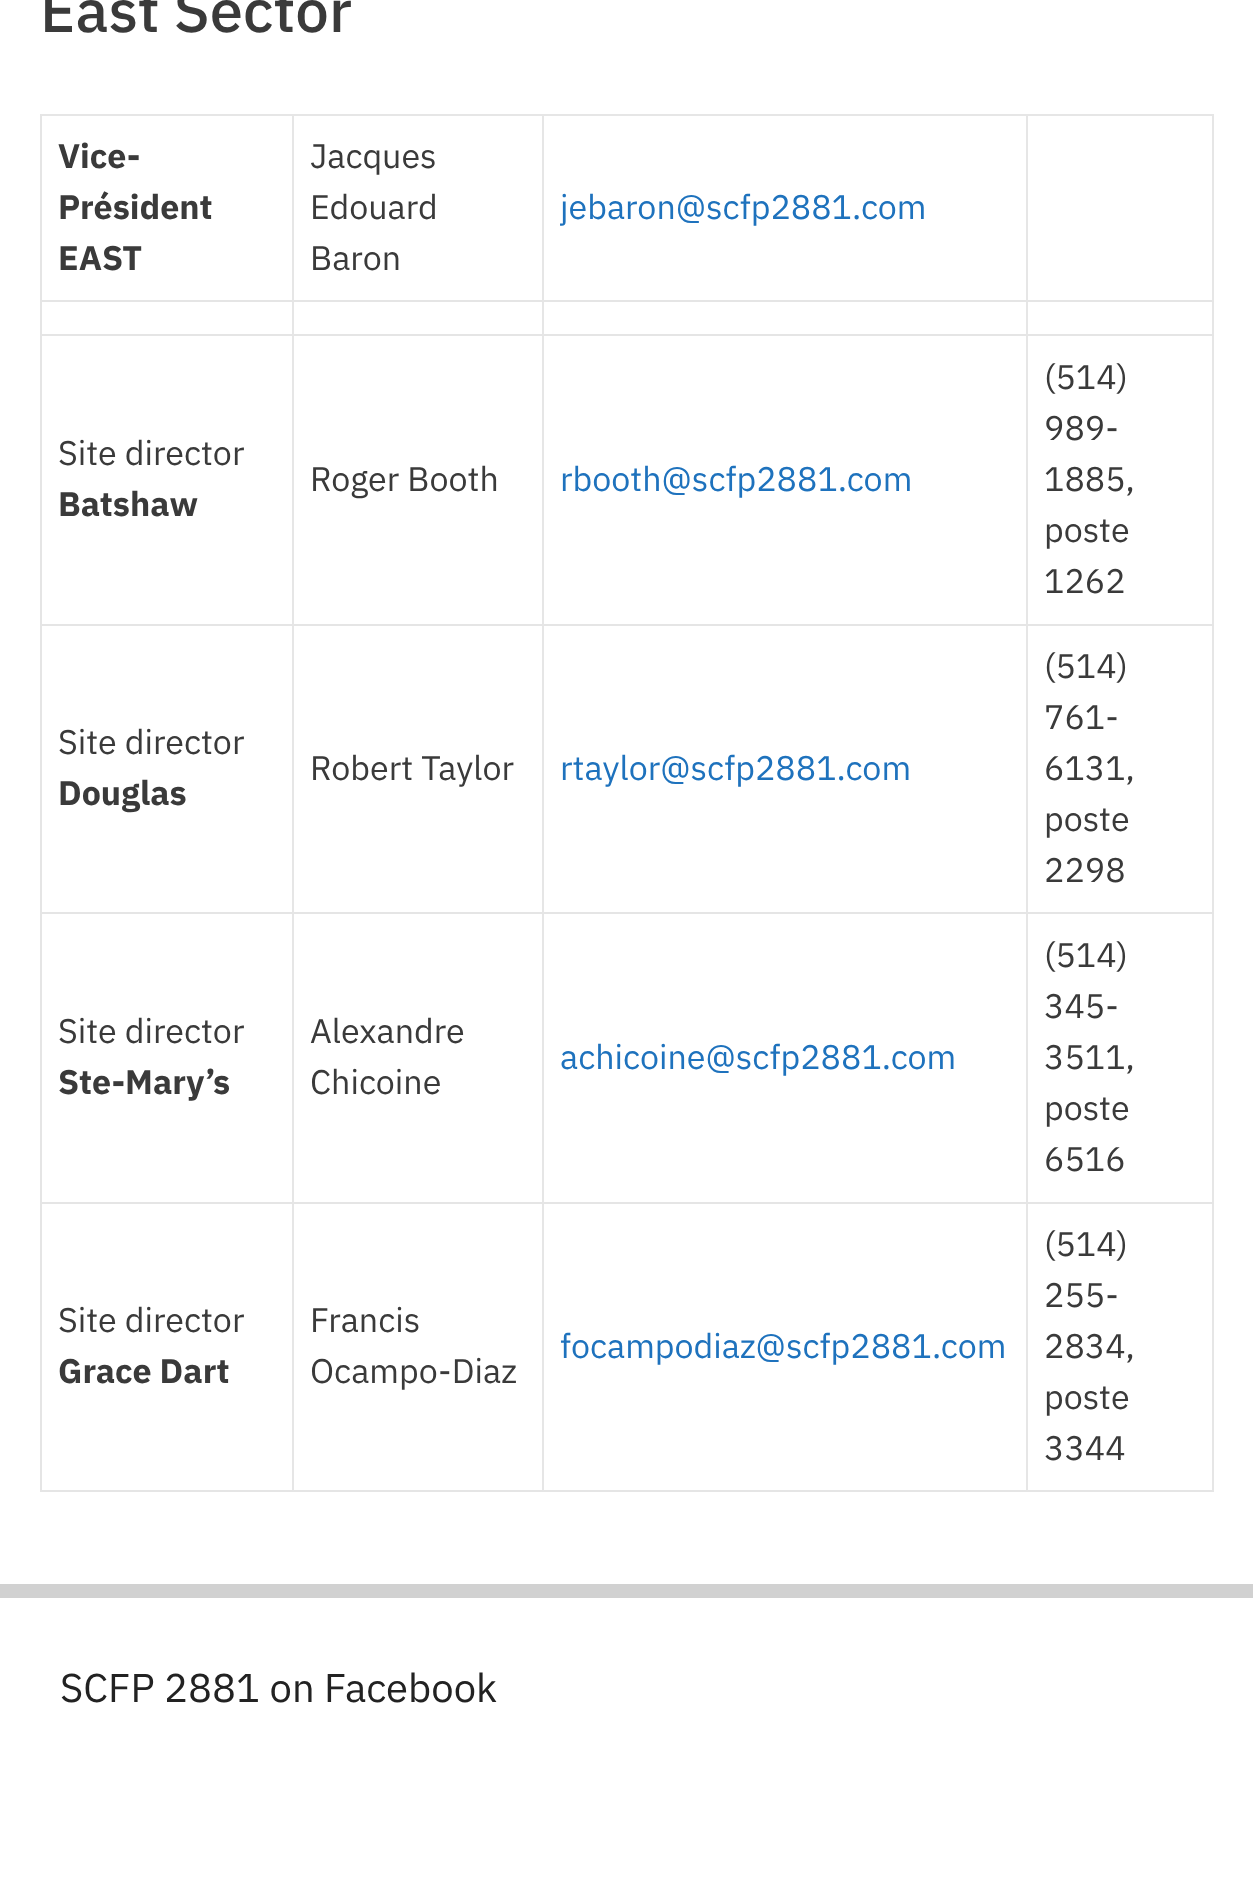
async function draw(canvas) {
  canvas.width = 1253;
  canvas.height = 1882;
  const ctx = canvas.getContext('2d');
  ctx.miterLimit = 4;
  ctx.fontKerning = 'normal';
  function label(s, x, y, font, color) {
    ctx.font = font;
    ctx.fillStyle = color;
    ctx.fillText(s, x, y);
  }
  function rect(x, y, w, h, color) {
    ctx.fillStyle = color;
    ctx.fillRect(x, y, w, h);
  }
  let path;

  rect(0, 0, 1253, 1882, '#d1d1d1');
  rect(0, 0, 1253, 1584, '#fff');
  label('East Sector', 40, 32, '500 60px IBM Plex Sans', '#3a3a3a');
  ctx.fillStyle = '#e6e6e6';
  path = new Path2D('M40 114H1214V116H42Z');
  ctx.fill(path);
  ctx.fillStyle = '#0000001a';
  path = new Path2D('M40 1492V114L42 116V1492Z');
  ctx.fill(path);
  ctx.fillStyle = '#e6e6e6';
  path = new Path2D('M294 116V302L292 300V116Z');
  ctx.fill(path);
  ctx.fillStyle = '#0000001a';
  path = new Path2D('M294 302H42V300H292Z');
  ctx.fill(path);
  label('Vice-', 58, 168, 'bold 34px IBM Plex Sans', '#3a3a3a');
  label('Président', 58, 219, 'bold 34px IBM Plex Sans', '#3a3a3a');
  label('EAST', 58, 270, 'bold 34px IBM Plex Sans', '#3a3a3a');
  ctx.fillStyle = '#e6e6e6';
  path = new Path2D('M544 116V302L542 300V116Z');
  ctx.fill(path);
  ctx.fillStyle = '#0000001a';
  path = new Path2D('M544 302H294V300H542Z');
  ctx.fill(path);
  label('Jacques', 310, 168, '34px IBM Plex Sans', '#3a3a3a');
  label('Edouard', 310, 219, '34px IBM Plex Sans', '#3a3a3a');
  label('Baron', 310, 270, '34px IBM Plex Sans', '#3a3a3a');
  ctx.fillStyle = '#e6e6e6';
  path = new Path2D('M1028 116V302L1026 300V116Z');
  ctx.fill(path);
  ctx.fillStyle = '#0000001a';
  path = new Path2D('M1028 302H544V300H1026Z');
  ctx.fill(path);
  label('jebaron@scfp2881.com', 560, 219, '34px IBM Plex Sans', '#1e72bd');
  ctx.fillStyle = '#e6e6e6';
  path = new Path2D('M1214 116V302L1212 300V116Z');
  ctx.fill(path);
  ctx.fillStyle = '#0000001a';
  path = new Path2D('M1214 302H1028V300H1212Z');
  ctx.fill(path);
  ctx.fillStyle = '#e6e6e6';
  path = new Path2D('M294 302V336L292 334V302Z');
  ctx.fill(path);
  ctx.fillStyle = '#0000001a';
  path = new Path2D('M294 336H42V334H292Z');
  ctx.fill(path);
  ctx.fillStyle = '#e6e6e6';
  path = new Path2D('M544 302V336L542 334V302Z');
  ctx.fill(path);
  ctx.fillStyle = '#0000001a';
  path = new Path2D('M544 336H294V334H542Z');
  ctx.fill(path);
  ctx.fillStyle = '#e6e6e6';
  path = new Path2D('M1028 302V336L1026 334V302Z');
  ctx.fill(path);
  ctx.fillStyle = '#0000001a';
  path = new Path2D('M1028 336H544V334H1026Z');
  ctx.fill(path);
  ctx.fillStyle = '#e6e6e6';
  path = new Path2D('M1214 302V336L1212 334V302Z');
  ctx.fill(path);
  ctx.fillStyle = '#0000001a';
  path = new Path2D('M1214 336H1028V334H1212Z');
  ctx.fill(path);
  ctx.fillStyle = '#e6e6e6';
  path = new Path2D('M294 336V626L292 624V336Z');
  ctx.fill(path);
  ctx.fillStyle = '#0000001a';
  path = new Path2D('M294 626H42V624H292Z');
  ctx.fill(path);
  label('Site director', 58, 465, '34px IBM Plex Sans', '#3a3a3a');
  label('Batshaw', 58, 516, 'bold 34px IBM Plex Sans', '#3a3a3a');
  ctx.fillStyle = '#e6e6e6';
  path = new Path2D('M544 336V626L542 624V336Z');
  ctx.fill(path);
  ctx.fillStyle = '#0000001a';
  path = new Path2D('M544 626H294V624H542Z');
  ctx.fill(path);
  label('Roger Booth', 310, 491, '34px IBM Plex Sans', '#3a3a3a');
  ctx.fillStyle = '#e6e6e6';
  path = new Path2D('M1028 336V626L1026 624V336Z');
  ctx.fill(path);
  ctx.fillStyle = '#0000001a';
  path = new Path2D('M1028 626H544V624H1026Z');
  ctx.fill(path);
  label('rbooth@scfp2881.com', 560, 491, '34px IBM Plex Sans', '#1e72bd');
  ctx.fillStyle = '#e6e6e6';
  path = new Path2D('M1214 336V626L1212 624V336Z');
  ctx.fill(path);
  ctx.fillStyle = '#0000001a';
  path = new Path2D('M1214 626H1028V624H1212Z');
  ctx.fill(path);
  label('(514)', 1044, 389, '34px IBM Plex Sans', '#3a3a3a');
  label('989-', 1044, 440, '34px IBM Plex Sans', '#3a3a3a');
  label('1885,', 1044, 491, '34px IBM Plex Sans', '#3a3a3a');
  label('poste', 1044, 542, '34px IBM Plex Sans', '#3a3a3a');
  label('1262', 1044, 593, '34px IBM Plex Sans', '#3a3a3a');
  ctx.fillStyle = '#e6e6e6';
  path = new Path2D('M294 626V914L292 912V626Z');
  ctx.fill(path);
  ctx.fillStyle = '#0000001a';
  path = new Path2D('M294 914H42V912H292Z');
  ctx.fill(path);
  label('Site director', 58, 754, '34px IBM Plex Sans', '#3a3a3a');
  label('Douglas', 58, 805, 'bold 34px IBM Plex Sans', '#3a3a3a');
  ctx.fillStyle = '#e6e6e6';
  path = new Path2D('M544 626V914L542 912V626Z');
  ctx.fill(path);
  ctx.fillStyle = '#0000001a';
  path = new Path2D('M544 914H294V912H542Z');
  ctx.fill(path);
  label('Robert Taylor', 310, 780, '34px IBM Plex Sans', '#3a3a3a');
  ctx.fillStyle = '#e6e6e6';
  path = new Path2D('M1028 626V914L1026 912V626Z');
  ctx.fill(path);
  ctx.fillStyle = '#0000001a';
  path = new Path2D('M1028 914H544V912H1026Z');
  ctx.fill(path);
  label('rtaylor@scfp2881.com', 560, 780, '34px IBM Plex Sans', '#1e72bd');
  ctx.fillStyle = '#e6e6e6';
  path = new Path2D('M1214 626V914L1212 912V626Z');
  ctx.fill(path);
  ctx.fillStyle = '#0000001a';
  path = new Path2D('M1214 914H1028V912H1212Z');
  ctx.fill(path);
  label('(514)', 1044, 678, '34px IBM Plex Sans', '#3a3a3a');
  label('761-', 1044, 729, '34px IBM Plex Sans', '#3a3a3a');
  label('6131,', 1044, 780, '34px IBM Plex Sans', '#3a3a3a');
  label('poste', 1044, 831, '34px IBM Plex Sans', '#3a3a3a');
  label('2298', 1044, 882, '34px IBM Plex Sans', '#3a3a3a');
  ctx.fillStyle = '#e6e6e6';
  path = new Path2D('M294 914V1204L292 1202V914Z');
  ctx.fill(path);
  ctx.fillStyle = '#0000001a';
  path = new Path2D('M294 1204H42V1202H292Z');
  ctx.fill(path);
  label('Site director', 58, 1043, '34px IBM Plex Sans', '#3a3a3a');
  label('Ste-Mary’s', 58, 1094, 'bold 34px IBM Plex Sans', '#3a3a3a');
  ctx.fillStyle = '#e6e6e6';
  path = new Path2D('M544 914V1204L542 1202V914Z');
  ctx.fill(path);
  ctx.fillStyle = '#0000001a';
  path = new Path2D('M544 1204H294V1202H542Z');
  ctx.fill(path);
  label('Alexandre', 310, 1043, '34px IBM Plex Sans', '#3a3a3a');
  label('Chicoine', 310, 1094, '34px IBM Plex Sans', '#3a3a3a');
  ctx.fillStyle = '#e6e6e6';
  path = new Path2D('M1028 914V1204L1026 1202V914Z');
  ctx.fill(path);
  ctx.fillStyle = '#0000001a';
  path = new Path2D('M1028 1204H544V1202H1026Z');
  ctx.fill(path);
  label('achicoine@scfp2881.com', 560, 1069, '34px IBM Plex Sans', '#1e72bd');
  ctx.fillStyle = '#e6e6e6';
  path = new Path2D('M1214 914V1204L1212 1202V914Z');
  ctx.fill(path);
  ctx.fillStyle = '#0000001a';
  path = new Path2D('M1214 1204H1028V1202H1212Z');
  ctx.fill(path);
  label('(514)', 1044, 967, '34px IBM Plex Sans', '#3a3a3a');
  label('345-', 1044, 1018, '34px IBM Plex Sans', '#3a3a3a');
  label('3511,', 1044, 1069, '34px IBM Plex Sans', '#3a3a3a');
  label('poste', 1044, 1120, '34px IBM Plex Sans', '#3a3a3a');
  label('6516', 1044, 1171, '34px IBM Plex Sans', '#3a3a3a');
  ctx.fillStyle = '#e6e6e6';
  path = new Path2D('M294 1204V1492L292 1490V1204Z');
  ctx.fill(path);
  ctx.fillStyle = '#0000001a';
  path = new Path2D('M294 1492H42V1490H292Z');
  ctx.fill(path);
  label('Site director', 58, 1332, '34px IBM Plex Sans', '#3a3a3a');
  label('Grace Dart', 58, 1383, 'bold 34px IBM Plex Sans', '#3a3a3a');
  ctx.fillStyle = '#e6e6e6';
  path = new Path2D('M544 1204V1492L542 1490V1204Z');
  ctx.fill(path);
  ctx.fillStyle = '#0000001a';
  path = new Path2D('M544 1492H294V1490H542Z');
  ctx.fill(path);
  label('Francis', 310, 1332, '34px IBM Plex Sans', '#3a3a3a');
  label('Ocampo-Diaz', 310, 1383, '34px IBM Plex Sans', '#3a3a3a');
  ctx.fillStyle = '#e6e6e6';
  path = new Path2D('M1028 1204V1492L1026 1490V1204Z');
  ctx.fill(path);
  ctx.fillStyle = '#0000001a';
  path = new Path2D('M1028 1492H544V1490H1026Z');
  ctx.fill(path);
  label('focampodiaz@scfp2881.com', 560, 1358, '34px IBM Plex Sans', '#1e72bd');
  ctx.fillStyle = '#e6e6e6';
  path = new Path2D('M1214 1204V1492L1212 1490V1204Z');
  ctx.fill(path);
  ctx.fillStyle = '#0000001a';
  path = new Path2D('M1214 1492H1028V1490H1212Z');
  ctx.fill(path);
  label('(514)', 1044, 1256, '34px IBM Plex Sans', '#3a3a3a');
  label('255-', 1044, 1307, '34px IBM Plex Sans', '#3a3a3a');
  label('2834,', 1044, 1358, '34px IBM Plex Sans', '#3a3a3a');
  label('poste', 1044, 1409, '34px IBM Plex Sans', '#3a3a3a');
  label('3344', 1044, 1460, '34px IBM Plex Sans', '#3a3a3a');
  rect(0, 1598, 1253, 284, '#fff');
  label('SCFP 2881 on Facebook', 60, 1702, '40px IBM Plex Sans', '#222');
}

draw(document.querySelector('canvas'));
